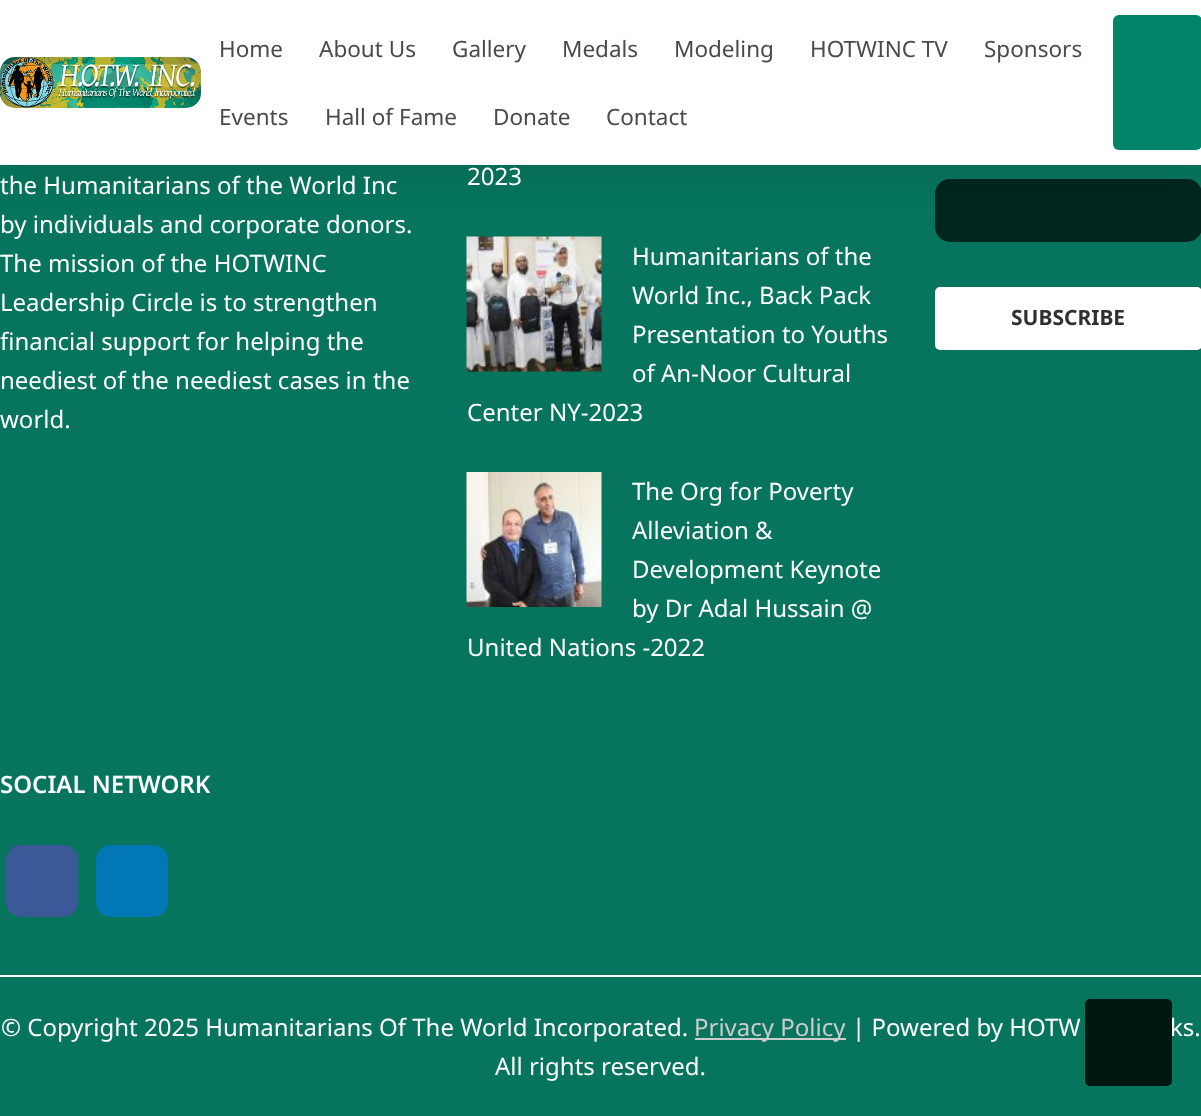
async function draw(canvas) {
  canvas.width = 1201;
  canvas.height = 1116;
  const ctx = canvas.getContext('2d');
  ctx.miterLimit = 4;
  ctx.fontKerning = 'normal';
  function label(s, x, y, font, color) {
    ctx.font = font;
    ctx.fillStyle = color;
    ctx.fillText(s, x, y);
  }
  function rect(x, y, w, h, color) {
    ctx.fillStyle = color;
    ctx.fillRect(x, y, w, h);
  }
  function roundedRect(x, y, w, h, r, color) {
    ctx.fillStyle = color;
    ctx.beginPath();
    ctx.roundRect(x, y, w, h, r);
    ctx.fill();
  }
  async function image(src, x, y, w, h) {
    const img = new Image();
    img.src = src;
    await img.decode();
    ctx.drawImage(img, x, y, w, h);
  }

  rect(0, 0, 1201, 1116, '#07755d');
  roundedRect(935, 179, 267, 63, 15, '#01261e');
  ctx.fillStyle = '#00000014';
  ctx.filter = 'blur(17px)';
  ctx.beginPath();
  ctx.rect(0, 15, 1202, 165);
  ctx.fill();
  ctx.filter = 'none';
  rect(0, 0, 1201, 165, '#fff');
  await image('assets/img1.png', 0, 57, 201, 51);
  label('Home', 219, 57, '22.5px Noto Sans', '#4a4a4a');
  label('About Us', 319, 57, '22.5px Noto Sans', '#4a4a4a');
  label('Gallery', 452, 57, '22.5px Noto Sans', '#4a4a4a');
  label('Medals', 562, 57, '22.5px Noto Sans', '#4a4a4a');
  label('Modeling', 674, 57, '22.5px Noto Sans', '#4a4a4a');
  label('HOTWINC TV', 810, 57, '22.5px Noto Sans', '#4a4a4a');
  label('Sponsors', 984, 57, '22.5px Noto Sans', '#4a4a4a');
  label('Events', 219, 125, '22.5px Noto Sans', '#4a4a4a');
  label('Hall of Fame', 325, 125, '22.5px Noto Sans', '#4a4a4a');
  label('Donate', 493, 125, '22.5px Noto Sans', '#4a4a4a');
  label('Contact', 606, 125, '22.5px Noto Sans', '#4a4a4a');
  roundedRect(1113, 15, 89, 135, 6, '#02846a');
  label('the Humanitarians of the World Inc', 0, 194, '24px Noto Sans', '#fff');
  label('by individuals and corporate donors.', 0, 233, '24px Noto Sans', '#fff');
  label('The mission of the HOTWINC', 0, 272, '24px Noto Sans', '#fff');
  label('Leadership Circle is to strengthen', 0, 311, '24px Noto Sans', '#fff');
  label('financial support for helping the', 0, 350, '24px Noto Sans', '#fff');
  label('neediest of the neediest cases in the', 0, 389, '24px Noto Sans', '#fff');
  label('world.', 0, 428, '24px Noto Sans', '#fff');
  label('2023', 467, 185, '24px Noto Sans', '#fff');
  await image('assets/img2.png', 466, 236, 136, 136);
  label('Humanitarians of the', 632, 265, '24px Noto Sans', '#fff');
  label('World Inc., Back Pack', 632, 304, '24px Noto Sans', '#fff');
  label('Presentation to Youths', 632, 343, '24px Noto Sans', '#fff');
  label('of An-Noor Cultural', 632, 382, '24px Noto Sans', '#fff');
  label('Center NY-2023', 467, 421, '24px Noto Sans', '#fff');
  await image('assets/img3.png', 466, 472, 136, 135);
  label('The Org for Poverty', 632, 500, '24px Noto Sans', '#fff');
  label('Alleviation &', 632, 539, '24px Noto Sans', '#fff');
  label('Development Keynote', 632, 578, '24px Noto Sans', '#fff');
  label('by Dr Adal Hussain @', 632, 617, '24px Noto Sans', '#fff');
  label('United Nations -2022', 467, 656, '24px Noto Sans', '#fff');
  roundedRect(935, 287, 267, 63, 5, '#fff');
  label('SUBSCRIBE', 1011, 325, 'bold 21px Noto Sans', '#303030');
  label('SOCIAL NETWORK', 0, 793, '600 24px Noto Sans', '#fff');
  roundedRect(6, 845, 72, 72, 15, '#3b5998');
  roundedRect(96, 845, 72, 72, 15, '#0177b5');
  rect(0, 975, 1201, 2, '#fff');
  label('© Copyright 2025 Humanitarians Of The World Incorporated.', 1, 1036, '24px Noto Sans', '#fff');
  rect(695, 1038, 151, 2, '#ccc');
  label('Privacy Policy', 694, 1036, '24px Noto Sans', '#ccc');
  label('| Powered by HOTW', 852, 1036, '24px Noto Sans', '#fff');
  label('ks.', 1170, 1036, '24px Noto Sans', '#fff');
  label('All rights reserved.', 495, 1075, '24px Noto Sans', '#fff');
  roundedRect(1085, 999, 87, 87, 5, '#000000cc');
}

draw(document.querySelector('canvas'));
